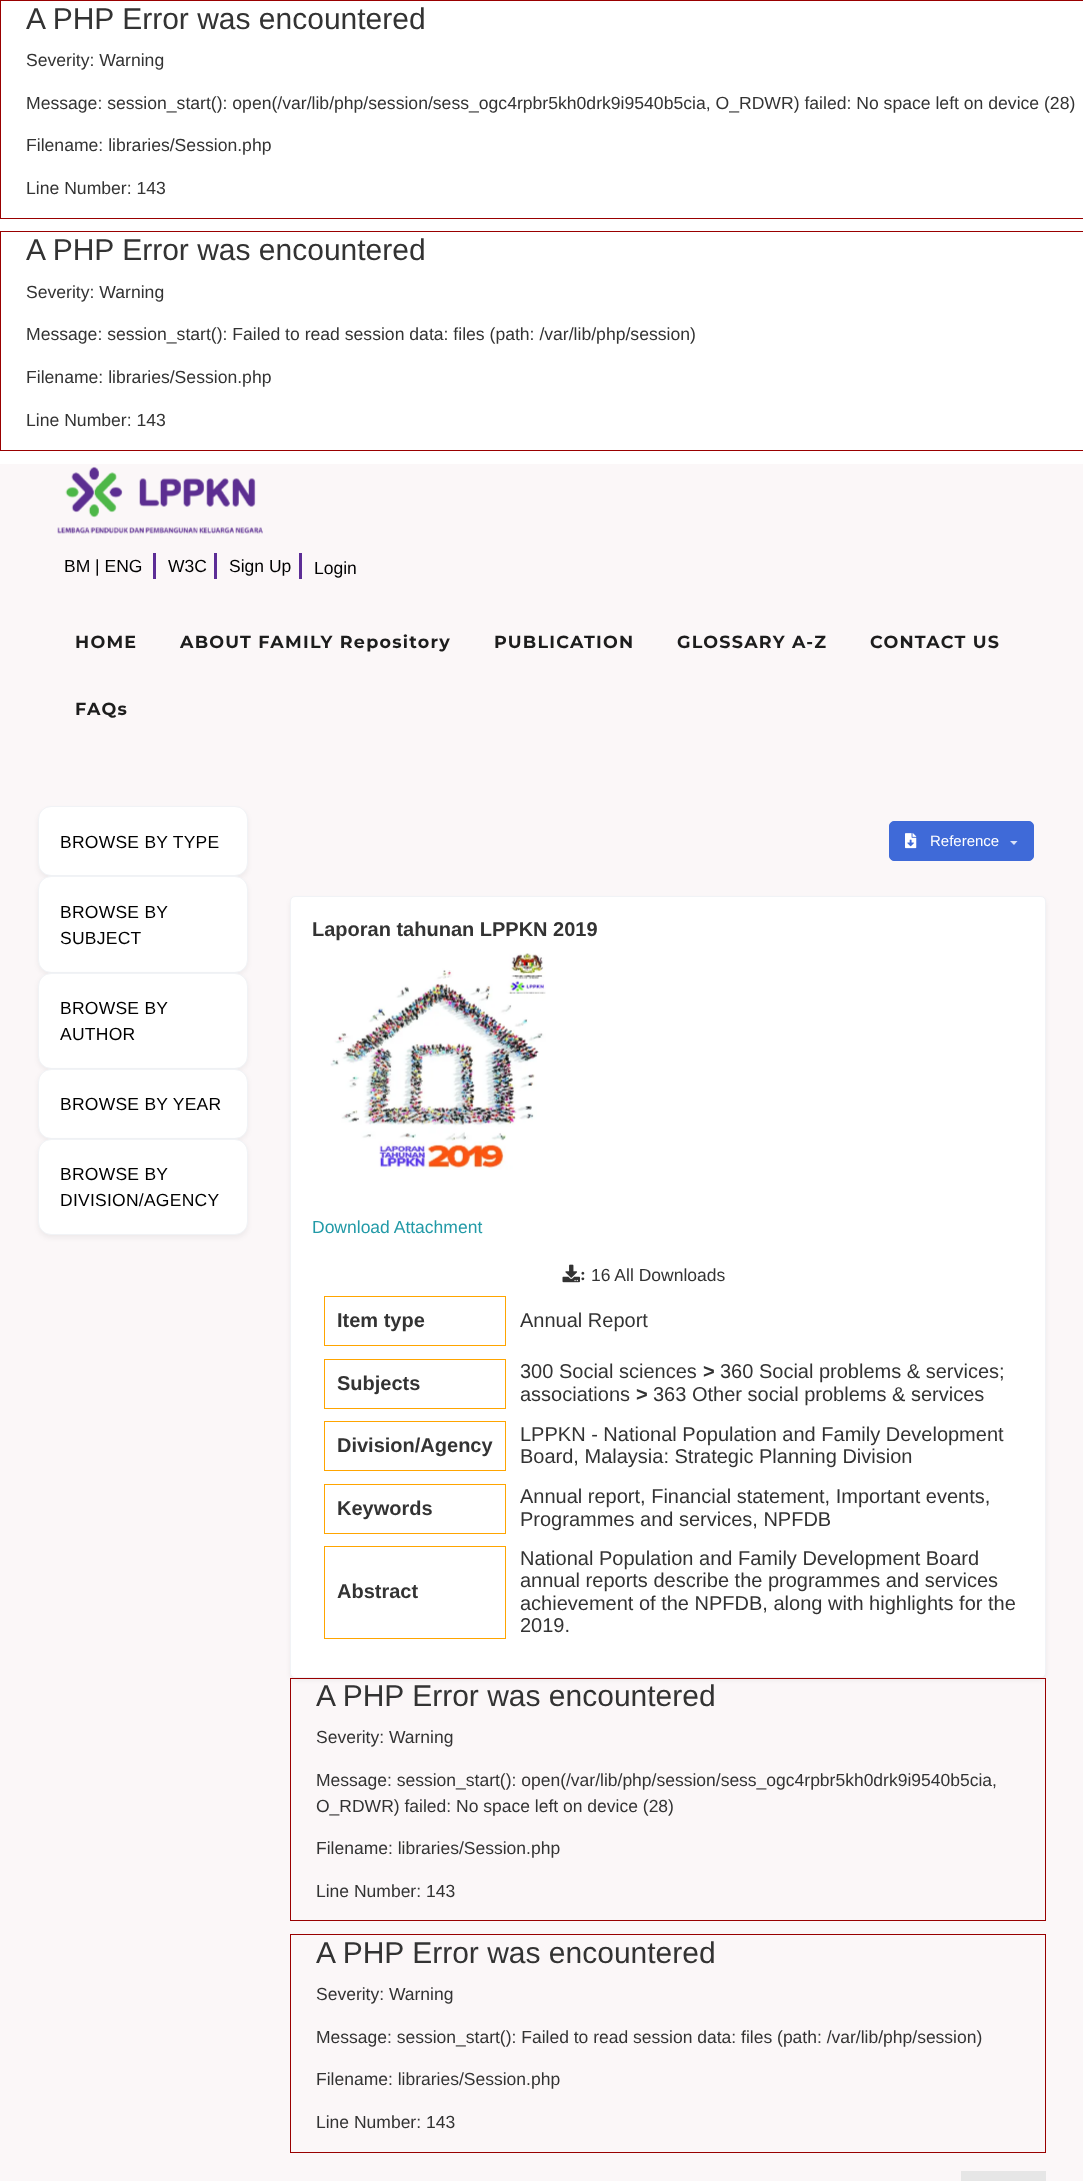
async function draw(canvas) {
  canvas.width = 1083;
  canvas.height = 2181;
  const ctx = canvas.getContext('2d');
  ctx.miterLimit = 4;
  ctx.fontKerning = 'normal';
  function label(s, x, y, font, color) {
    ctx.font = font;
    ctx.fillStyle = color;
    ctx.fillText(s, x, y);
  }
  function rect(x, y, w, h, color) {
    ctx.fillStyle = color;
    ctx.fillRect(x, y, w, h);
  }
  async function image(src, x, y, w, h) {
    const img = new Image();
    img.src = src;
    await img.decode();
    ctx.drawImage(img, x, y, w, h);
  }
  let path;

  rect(0, 0, 1083, 2181, '#fff');
  ctx.strokeStyle = '#900';
  ctx.strokeRect(0.5, 0.5, 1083, 218);
  label('A PHP Error was encountered', 26, 29, '30px Liberation Sans', '#333');
  label('Severity: Warning', 26, 66, '17.6px Liberation Sans', '#333');
  label('Message: session_start(): open(/var/lib/php/session/sess_ogc4rpbr5kh0drk9i9540b5cia, O_RDWR) failed: No space left on device (28)', 26, 109, '17.6px Liberation Sans', '#333');
  label('Filename: libraries/Session.php', 26, 151, '17.6px Liberation Sans', '#333');
  label('Line Number: 143', 26, 194, '17.6px Liberation Sans', '#333');
  ctx.strokeRect(0.5, 231.5, 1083, 219);
  label('A PHP Error was encountered', 26, 260, '30px Liberation Sans', '#333');
  label('Severity: Warning', 26, 298, '17.6px Liberation Sans', '#333');
  label('Message: session_start(): Failed to read session data: files (path: /var/lib/php/session)', 26, 340, '17.6px Liberation Sans', '#333');
  label('Filename: libraries/Session.php', 26, 383, '17.6px Liberation Sans', '#333');
  label('Line Number: 143', 26, 426, '17.6px Liberation Sans', '#333');
  rect(0, 464, 1083, 1717, '#fbf7f8');
  await image('assets/img1.png', 57, 466, 206, 68);
  rect(153, 553, 3, 26, '#5c2d96');
  label('BM | ENG', 64, 572, '17.5px Liberation Sans', '#000');
  rect(214, 553, 3, 26, '#5c2d96');
  label('W3C', 168, 572, '17.5px Liberation Sans', '#000');
  rect(299, 553, 3, 26, '#5c2d96');
  label('Sign Up', 229, 572, '17.5px Liberation Sans', '#000');
  label('Login', 314, 574, '17.5px Liberation Sans', '#000');
  ctx.letterSpacing = '1.25px';
  label('HOME', 75, 648, 'bold 17.5px Montserrat', '#1d1d1d');
  label('ABOUT FAMILY Repository', 180, 648, 'bold 17.5px Montserrat', '#1d1d1d');
  label('PUBLICATION', 494, 648, 'bold 17.5px Montserrat', '#1d1d1d');
  label('GLOSSARY A-Z', 677, 648, 'bold 17.5px Montserrat', '#1d1d1d');
  label('CONTACT US', 870, 648, 'bold 17.5px Montserrat', '#1d1d1d');
  label('FAQs', 75, 715, 'bold 17.5px Montserrat', '#1d1d1d');
  ctx.fillStyle = '#0000000d';
  ctx.filter = 'blur(2.5px)';
  ctx.beginPath();
  ctx.roundRect(38, 809, 210, 70, 13);
  ctx.fill();
  ctx.filter = 'none';
  ctx.fillStyle = '#fff';
  ctx.beginPath();
  ctx.roundRect(38.5, 806.5, 209, 69, 12.5);
  ctx.fill();
  ctx.strokeStyle = '#f1f3f6';
  ctx.stroke();
  ctx.letterSpacing = '0.25px';
  label('BROWSE BY TYPE', 60, 848, '17.5px Liberation Sans', '#000');
  ctx.fillStyle = '#0000000d';
  ctx.filter = 'blur(2.5px)';
  ctx.beginPath();
  ctx.roundRect(38, 879, 210, 96, 13);
  ctx.fill();
  ctx.filter = 'none';
  ctx.fillStyle = '#fff';
  ctx.beginPath();
  ctx.roundRect(38.5, 876.5, 209, 96, 12.5);
  ctx.fill();
  ctx.stroke();
  label('BROWSE BY', 60, 918, '17.5px Liberation Sans', '#000');
  label('SUBJECT', 60, 944, '17.5px Liberation Sans', '#000');
  ctx.fillStyle = '#0000000d';
  ctx.filter = 'blur(2.5px)';
  ctx.beginPath();
  ctx.roundRect(38, 975, 210, 96, 13);
  ctx.fill();
  ctx.filter = 'none';
  ctx.fillStyle = '#fff';
  ctx.beginPath();
  ctx.roundRect(38.5, 973.5, 209, 95, 12.5);
  ctx.fill();
  ctx.stroke();
  label('BROWSE BY', 60, 1014, '17.5px Liberation Sans', '#000');
  label('AUTHOR', 60, 1040, '17.5px Liberation Sans', '#000');
  ctx.fillStyle = '#0000000d';
  ctx.filter = 'blur(2.5px)';
  ctx.beginPath();
  ctx.roundRect(38, 1071, 210, 70, 13);
  ctx.fill();
  ctx.filter = 'none';
  ctx.fillStyle = '#fff';
  ctx.beginPath();
  ctx.roundRect(38.5, 1069.5, 209, 69, 12.5);
  ctx.fill();
  ctx.stroke();
  label('BROWSE BY YEAR', 60, 1110, '17.5px Liberation Sans', '#000');
  ctx.fillStyle = '#0000000d';
  ctx.filter = 'blur(2.5px)';
  ctx.beginPath();
  ctx.roundRect(38, 1141, 210, 97, 13);
  ctx.fill();
  ctx.filter = 'none';
  ctx.fillStyle = '#fff';
  ctx.beginPath();
  ctx.roundRect(38.5, 1139.5, 209, 95, 12.5);
  ctx.fill();
  ctx.stroke();
  label('BROWSE BY', 60, 1180, '17.5px Liberation Sans', '#000');
  label('DIVISION/AGENCY', 60, 1206, '17.5px Liberation Sans', '#000');
  ctx.fillStyle = '#3f6ad8';
  ctx.beginPath();
  ctx.roundRect(889.5, 821.5, 144, 39, 4.5);
  ctx.fill();
  ctx.strokeStyle = '#3f6ad8';
  ctx.stroke();
  await image('assets/img2.png', 905, 833, 12, 16);
  ctx.letterSpacing = '0px';
  label('Reference', 930, 846, '15px Liberation Sans', '#fff');
  ctx.fillStyle = '#d9e1f7';
  path = new Path2D('M1010 841H1017.5L1014 845Z');
  ctx.fill(path);
  ctx.fillStyle = '#0000000d';
  ctx.filter = 'blur(2.5px)';
  ctx.beginPath();
  ctx.roundRect(290, 899, 756, 781, 5);
  ctx.fill();
  ctx.filter = 'none';
  ctx.fillStyle = '#fff';
  ctx.beginPath();
  ctx.roundRect(290.5, 896.5, 755, 781, 4.5);
  ctx.fill();
  ctx.strokeStyle = '#f1f3f6';
  ctx.stroke();
  label('Laporan tahunan LPPKN 2019', 312, 936, 'bold 20px Liberation Sans', '#333');
  await image('assets/img3.png', 330, 953, 216, 217);
  label('Download Attachment', 312, 1233, '17.5px Liberation Sans', '#229aa7');
  await image('assets/img4.png', 562, 1264, 18, 19);
  label(':', 580, 1280, 'bold 17.5px Liberation Serif', '#333');
  label('16 All Downloads', 591, 1281, '17.5px Liberation Sans', '#333');
  ctx.strokeStyle = '#ffa500';
  ctx.strokeRect(324.5, 1296.5, 181, 49);
  label('Item type', 337, 1327, 'bold 20px Liberation Sans', '#333');
  label('Annual Report', 520, 1327, '20px Liberation Sans', '#333');
  ctx.strokeRect(324.5, 1359.5, 181, 49);
  label('Subjects', 337, 1390, 'bold 20px Liberation Sans', '#333');
  label('300 Social sciences', 520, 1378, '20px Liberation Sans', '#333');
  label('>', 703, 1378, 'bold 20px Liberation Sans', '#333');
  label('360 Social problems & services;', 720, 1378, '20px Liberation Sans', '#333');
  label('associations', 520, 1401, '20px Liberation Sans', '#333');
  label('>', 636, 1401, 'bold 20px Liberation Sans', '#333');
  label('363 Other social problems & services', 653, 1401, '20px Liberation Sans', '#333');
  ctx.strokeRect(324.5, 1421.5, 181, 49);
  label('Division/Agency', 337, 1452, 'bold 20px Liberation Sans', '#333');
  label('LPPKN - National Population and Family Development', 520, 1441, '20px Liberation Sans', '#333');
  label('Board, Malaysia: Strategic Planning Division', 520, 1463, '20px Liberation Sans', '#333');
  ctx.strokeRect(324.5, 1484.5, 181, 49);
  label('Keywords', 337, 1515, 'bold 20px Liberation Sans', '#333');
  label('Annual report, Financial statement, Important events,', 520, 1503, '20px Liberation Sans', '#333');
  label('Programmes and services, NPFDB', 520, 1526, '20px Liberation Sans', '#333');
  ctx.strokeRect(324.5, 1546.5, 181, 92);
  label('Abstract', 337, 1598, 'bold 20px Liberation Sans', '#333');
  label('National Population and Family Development Board', 520, 1565, '20px Liberation Sans', '#333');
  label('annual reports describe the programmes and services', 520, 1587, '20px Liberation Sans', '#333');
  label('achievement of the NPFDB, along with highlights for the', 520, 1610, '20px Liberation Sans', '#333');
  label('2019.', 520, 1632, '20px Liberation Sans', '#333');
  ctx.strokeStyle = '#900';
  ctx.strokeRect(290.5, 1678.5, 755, 242);
  label('A PHP Error was encountered', 316, 1706, '30px Liberation Sans', '#333');
  label('Severity: Warning', 316, 1743, '17.5px Liberation Sans', '#333');
  label('Message: session_start(): open(/var/lib/php/session/sess_ogc4rpbr5kh0drk9i9540b5cia,', 316, 1786, '17.5px Liberation Sans', '#333');
  label('O_RDWR) failed: No space left on device (28)', 316, 1812, '17.5px Liberation Sans', '#333');
  label('Filename: libraries/Session.php', 316, 1854, '17.5px Liberation Sans', '#333');
  label('Line Number: 143', 316, 1897, '17.5px Liberation Sans', '#333');
  ctx.strokeRect(290.5, 1934.5, 755, 218);
  label('A PHP Error was encountered', 316, 1963, '30px Liberation Sans', '#333');
  label('Severity: Warning', 316, 2000, '17.5px Liberation Sans', '#333');
  label('Message: session_start(): Failed to read session data: files (path: /var/lib/php/session)', 316, 2043, '17.5px Liberation Sans', '#333');
  label('Filename: libraries/Session.php', 316, 2085, '17.5px Liberation Sans', '#333');
  label('Line Number: 143', 316, 2128, '17.5px Liberation Sans', '#333');
  rect(961, 2171, 85, 10, '#e6e6e6');
}

draw(document.querySelector('canvas'));
